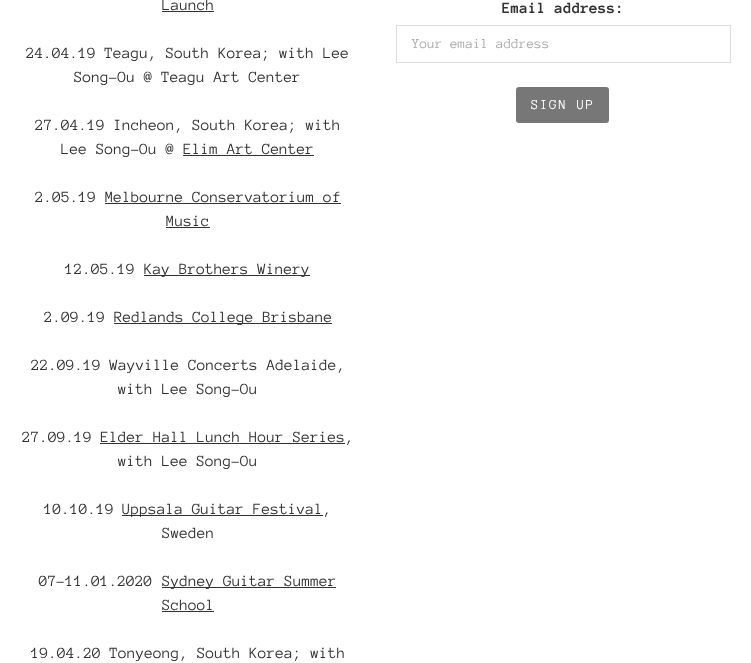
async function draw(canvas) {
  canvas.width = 751;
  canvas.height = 663;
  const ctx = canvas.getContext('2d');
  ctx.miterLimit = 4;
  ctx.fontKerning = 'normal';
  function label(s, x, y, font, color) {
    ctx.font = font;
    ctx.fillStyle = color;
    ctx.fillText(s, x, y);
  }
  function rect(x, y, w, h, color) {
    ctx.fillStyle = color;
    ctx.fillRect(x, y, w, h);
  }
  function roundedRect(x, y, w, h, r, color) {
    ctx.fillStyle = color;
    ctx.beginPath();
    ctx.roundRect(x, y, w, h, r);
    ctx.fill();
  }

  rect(0, 0, 751, 663, '#fff');
  label('Launch', 162, 10, '16px Anonymous Pro', '#333');
  rect(162, 11, 52, 1, '#333');
  label('24.04.19 Teagu, South Korea; with Lee', 26, 58, '16px Anonymous Pro', '#333');
  label('Song-Ou @ Teagu Art Center', 74, 82, '16px Anonymous Pro', '#333');
  label('27.04.19 Incheon, South Korea; with', 35, 130, '16px Anonymous Pro', '#333');
  label('Lee Song-Ou @ Elim Art Center', 61, 154, '16px Anonymous Pro', '#333');
  rect(183, 155, 131, 1, '#333');
  label('2.05.19 Melbourne Conservatorium of', 35, 202, '16px Anonymous Pro', '#333');
  label('Music', 166, 226, '16px Anonymous Pro', '#333');
  rect(105, 203, 236, 1, '#333');
  rect(166, 227, 44, 1, '#333');
  label('12.05.19', 65, 274, '16px Anonymous Pro', '#333');
  rect(144, 275, 166, 1, '#333');
  label('Kay Brothers Winery', 144, 274, '16px Anonymous Pro', '#333');
  label('2.09.19', 44, 322, '16px Anonymous Pro', '#333');
  rect(114, 323, 218, 1, '#333');
  label('Redlands College Brisbane', 114, 322, '16px Anonymous Pro', '#333');
  label('22.09.19 Wayville Concerts Adelaide,', 31, 370, '16px Anonymous Pro', '#333');
  label('with Lee Song-Ou', 118, 394, '16px Anonymous Pro', '#333');
  label('27.09.19 Elder Hall Lunch Hour Series,', 22, 442, '16px Anonymous Pro', '#333');
  rect(100, 443, 245, 1, '#333');
  label('with Lee Song-Ou', 118, 466, '16px Anonymous Pro', '#333');
  label('10.10.19', 44, 514, '16px Anonymous Pro', '#333');
  rect(122, 515, 201, 1, '#333');
  label('Uppsala Guitar Festival,', 122, 514, '16px Anonymous Pro', '#333');
  label('Sweden', 162, 538, '16px Anonymous Pro', '#333');
  label('07-11.01.2020', 39, 586, '16px Anonymous Pro', '#333');
  rect(162, 587, 174, 1, '#333');
  label('Sydney Guitar Summer', 162, 586, '16px Anonymous Pro', '#333');
  label('School', 162, 610, '16px Anonymous Pro', '#333');
  rect(162, 611, 52, 1, '#333');
  label('19.04.20 Tonyeong, South Korea; with', 31, 658, '16px Anonymous Pro', '#333');
  label('Email address:', 502, 13, 'bold 16px Anonymous Pro', '#333');
  ctx.strokeStyle = '#ddd';
  ctx.strokeRect(396.5, 25.5, 334, 37);
  label('Your email address', 412, 48, '14px Anonymous Pro', '#ababab');
  roundedRect(516, 87, 93, 36, 3, '#777');
  ctx.letterSpacing = '1.5px';
  label('SIGN UP', 531, 109, '14px Anonymous Pro', '#fff');
}

draw(document.querySelector('canvas'));
